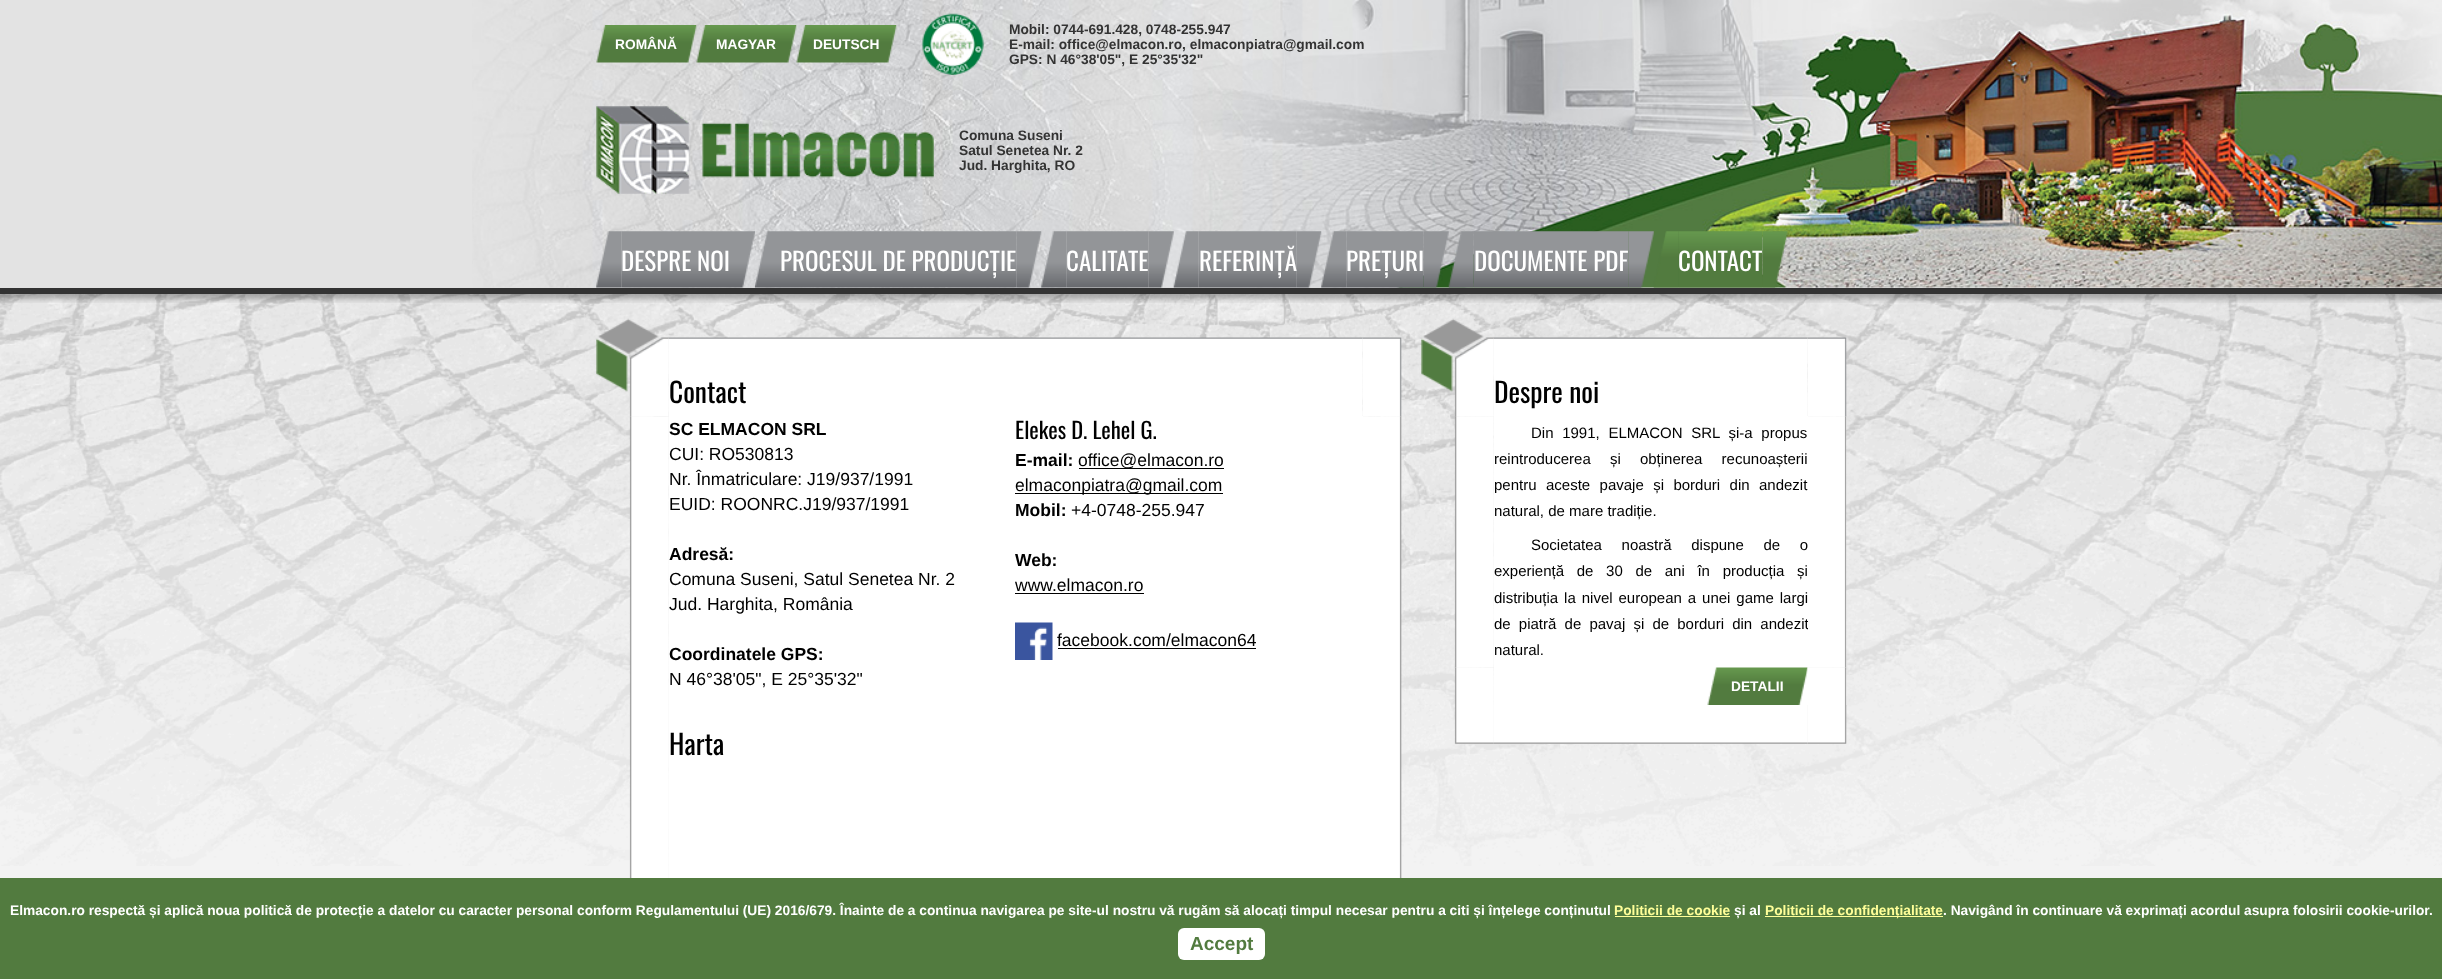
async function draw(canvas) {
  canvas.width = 2442;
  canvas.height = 979;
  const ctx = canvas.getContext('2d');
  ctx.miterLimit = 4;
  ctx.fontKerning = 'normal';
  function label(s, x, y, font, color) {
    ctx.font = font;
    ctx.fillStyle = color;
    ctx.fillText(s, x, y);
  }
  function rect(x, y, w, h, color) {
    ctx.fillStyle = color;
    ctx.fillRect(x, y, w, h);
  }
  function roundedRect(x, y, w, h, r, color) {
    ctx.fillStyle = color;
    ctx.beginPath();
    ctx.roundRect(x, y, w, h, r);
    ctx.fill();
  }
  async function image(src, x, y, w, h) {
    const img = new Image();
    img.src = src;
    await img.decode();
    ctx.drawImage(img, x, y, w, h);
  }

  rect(0, 0, 2442, 979, '#f3f3f3');
  await image('assets/img1.png', 0, 0, 2442, 866);
  await image('assets/img2.png', 472, 0, 1970, 288);
  await image('assets/img3.png', 596, 25, 101, 38);
  label('ROMÂNĂ', 615, 49, 'bold 13.75px Liberation Sans', '#fff');
  await image('assets/img4.png', 696, 25, 101, 38);
  label('MAGYAR', 716, 49, 'bold 13.75px Liberation Sans', '#fff');
  await image('assets/img5.png', 796, 25, 101, 38);
  label('DEUTSCH', 813, 49, 'bold 13.75px Liberation Sans', '#fff');
  await image('assets/img6.png', 921, 13, 63, 62);
  label('Mobil: 0744-691.428, 0748-255.947', 1009, 34, 'bold 13.75px Liberation Sans', '#333');
  label('E-mail: office@elmacon.ro, elmaconpiatra@gmail.com', 1009, 49, 'bold 13.75px Liberation Sans', '#333');
  label('GPS: N 46°38\'05", E 25°35\'32"', 1009, 64, 'bold 13.75px Liberation Sans', '#333');
  await image('assets/img7.png', 596, 106, 338, 88);
  label('Comuna Suseni', 959, 140, 'bold 13.75px Liberation Sans', '#333');
  label('Satul Senetea Nr. 2', 959, 155, 'bold 13.75px Liberation Sans', '#333');
  label('Jud. Harghita, RO', 959, 170, 'bold 13.75px Liberation Sans', '#333');
  await image('assets/img8.png', 596, 231, 26, 57);
  await image('assets/img9.png', 621, 231, 109, 57);
  label('DESPRE NOI', 621, 271, '25px Oswald', '#fff');
  await image('assets/img10.png', 730, 231, 25, 57);
  await image('assets/img11.png', 755, 231, 25, 57);
  await image('assets/img12.png', 780, 231, 237, 57);
  label('PROCESUL DE PRODUCȚIE', 780, 271, '25px Oswald', '#fff');
  await image('assets/img13.png', 1016, 231, 26, 57);
  await image('assets/img14.png', 1041, 231, 26, 57);
  await image('assets/img15.png', 1066, 231, 83, 57);
  await image('assets/img16.png', 1148, 231, 26, 57);
  label('CALITATE', 1066, 271, '25px Oswald', '#fff');
  await image('assets/img17.png', 1173, 231, 26, 57);
  await image('assets/img18.png', 1198, 231, 99, 57);
  await image('assets/img19.png', 1296, 231, 26, 57);
  label('REFERINȚĂ', 1199, 271, '25px Oswald', '#fff');
  await image('assets/img20.png', 1321, 231, 26, 57);
  await image('assets/img21.png', 1346, 231, 78, 57);
  label('PREȚURI', 1346, 271, '25px Oswald', '#fff');
  await image('assets/img22.png', 1423, 231, 26, 57);
  await image('assets/img23.png', 1448, 231, 26, 57);
  await image('assets/img24.png', 1473, 231, 156, 57);
  label('DOCUMENTE PDF', 1474, 271, '25px Oswald', '#fff');
  await image('assets/img25.png', 1628, 231, 26, 57);
  await image('assets/img26.png', 1653, 231, 26, 57);
  await image('assets/img27.png', 1678, 231, 85, 57);
  await image('assets/img28.png', 1762, 231, 26, 57);
  label('CONTACT', 1678, 271, '25px Oswald', '#fff');
  rect(0, 288, 2442, 6, '#333');
  await image('assets/img29.png', 0, 294, 2442, 9);
  await image('assets/img30.png', 596, 318, 73, 99);
  await image('assets/img31.png', 668, 337, 695, 80);
  label('Contact', 669, 403, '27.5px Oswald', '#000');
  await image('assets/img32.png', 1362, 337, 40, 80);
  await image('assets/img33.png', 629, 416, 40, 462);
  rect(669, 416, 694, 275, '#fff');
  label('SC ELMACON SRL', 669, 435, 'bold 17.5px Liberation Sans', '#000');
  label('CUI: RO530813', 669, 460, '17.5px Liberation Sans', '#000');
  label('Nr. Înmatriculare: J19/937/1991', 669, 485, '17.5px Liberation Sans', '#000');
  label('EUID: ROONRC.J19/937/1991', 669, 510, '17.5px Liberation Sans', '#000');
  label('Adresă:', 669, 560, 'bold 17.5px Liberation Sans', '#000');
  label('Comuna Suseni, Satul Senetea Nr. 2', 669, 585, '17.5px Liberation Sans', '#000');
  label('Jud. Harghita, România', 669, 610, '17.5px Liberation Sans', '#000');
  label('Coordinatele GPS:', 669, 660, 'bold 17.5px Liberation Sans', '#000');
  label('N 46°38\'05", E 25°35\'32"', 669, 685, '17.5px Liberation Sans', '#000');
  label('Elekes D. Lehel G.', 1015, 439, '22.5px Oswald', '#000');
  label('E-mail:', 1015, 466, 'bold 17.5px Liberation Sans', '#000');
  rect(1079, 468, 145, 1, '#000');
  label('office@elmacon.ro', 1078, 466, '17.5px Liberation Sans', '#000');
  rect(1015, 493, 208, 1, '#000');
  label('elmaconpiatra@gmail.com', 1015, 491, '17.5px Liberation Sans', '#000');
  label('Mobil:', 1015, 516, 'bold 17.5px Liberation Sans', '#000');
  label('+4-0748-255.947', 1071, 516, '17.5px Liberation Sans', '#000');
  label('Web:', 1015, 566, 'bold 17.5px Liberation Sans', '#000');
  label('www.elmacon.ro', 1015, 591, '17.5px Liberation Sans', '#000');
  rect(1015, 593, 129, 1, '#000');
  await image('assets/img34.png', 1015, 622, 38, 38);
  label('facebook.com/elmacon64', 1057, 646, '17.5px Liberation Sans', '#000');
  rect(1058, 648, 198, 1, '#000');
  await image('assets/img35.png', 1362, 416, 40, 462);
  rect(669, 691, 694, 187, '#fff');
  label('Harta', 669, 755, '27.5px Oswald', '#000');
  await image('assets/img36.png', 1421, 318, 73, 99);
  await image('assets/img37.png', 1493, 337, 315, 80);
  label('Despre noi', 1494, 403, '27.5px Oswald', '#000');
  await image('assets/img38.png', 1807, 337, 40, 80);
  await image('assets/img39.png', 1454, 416, 40, 252);
  rect(1494, 416, 314, 289, '#fff');
  ctx.wordSpacing = '4.5px';
  label('Din 1991, ELMACON SRL și-a propus', 1531, 438, '15px Liberation Sans', '#000');
  ctx.wordSpacing = '15px';
  label('reintroducerea și obținerea recunoașterii', 1494, 464, '15px Liberation Sans', '#000');
  ctx.wordSpacing = '5.25px';
  label('pentru aceste pavaje și borduri din andezit', 1494, 490, '15px Liberation Sans', '#000');
  ctx.wordSpacing = '0px';
  label('natural, de mare tradiție.', 1494, 516, '15px Liberation Sans', '#000');
  ctx.wordSpacing = '15.5px';
  label('Societatea noastră dispune de o', 1531, 550, '15px Liberation Sans', '#000');
  ctx.wordSpacing = '8.5px';
  label('experiență de 30 de ani în producția și', 1494, 576, '15px Liberation Sans', '#000');
  ctx.wordSpacing = '1.75px';
  label('distribuția la nivel european a unei game largi', 1494, 603, '15px Liberation Sans', '#000');
  ctx.wordSpacing = '4px';
  label('de piatră de pavaj și de borduri din andezit', 1494, 629, '15px Liberation Sans', '#000');
  ctx.wordSpacing = '0px';
  label('natural.', 1494, 655, '15px Liberation Sans', '#000');
  await image('assets/img40.png', 1808, 416, 39, 252);
  await image('assets/img41.png', 1454, 667, 40, 38);
  await image('assets/img42.png', 1707, 667, 101, 38);
  label('DETALII', 1731, 691, 'bold 13.75px Liberation Sans', '#fff');
  await image('assets/img43.png', 1807, 667, 40, 38);
  await image('assets/img44.png', 1454, 705, 40, 39);
  await image('assets/img45.png', 1493, 705, 315, 39);
  await image('assets/img46.png', 1807, 705, 40, 39);
  rect(0, 878, 2442, 101, '#527b3f');
  label('Elmacon.ro respectă și aplică noua politică de protecție a datelor cu caracter personal conform Regulamentului (UE) 2016/679. Înainte de a continua navigarea pe site-ul nostru vă rugăm să alocați timpul necesar pentru a citi și înțelege conținutul', 10, 915, 'bold 13.75px Liberation Sans', '#fff');
  label('Politicii de cookie', 1614, 915, 'bold 13.75px Liberation Sans', '#ff9');
  rect(1615, 916, 115, 1, '#ff9');
  label('și al', 1734, 915, 'bold 13.75px Liberation Sans', '#fff');
  rect(1765, 916, 178, 1, '#ff9');
  label('Politicii de confidențialitate', 1765, 915, 'bold 13.75px Liberation Sans', '#ff9');
  label('. Navigând în continuare vă exprimați acordul asupra folosirii cookie-urilor.', 1943, 915, 'bold 13.75px Liberation Sans', '#fff');
  roundedRect(1178, 928, 87, 32, 6, '#fff');
  label('Accept', 1190, 950, 'bold 19px Liberation Sans', '#527b3f');
}

draw(document.querySelector('canvas'));
